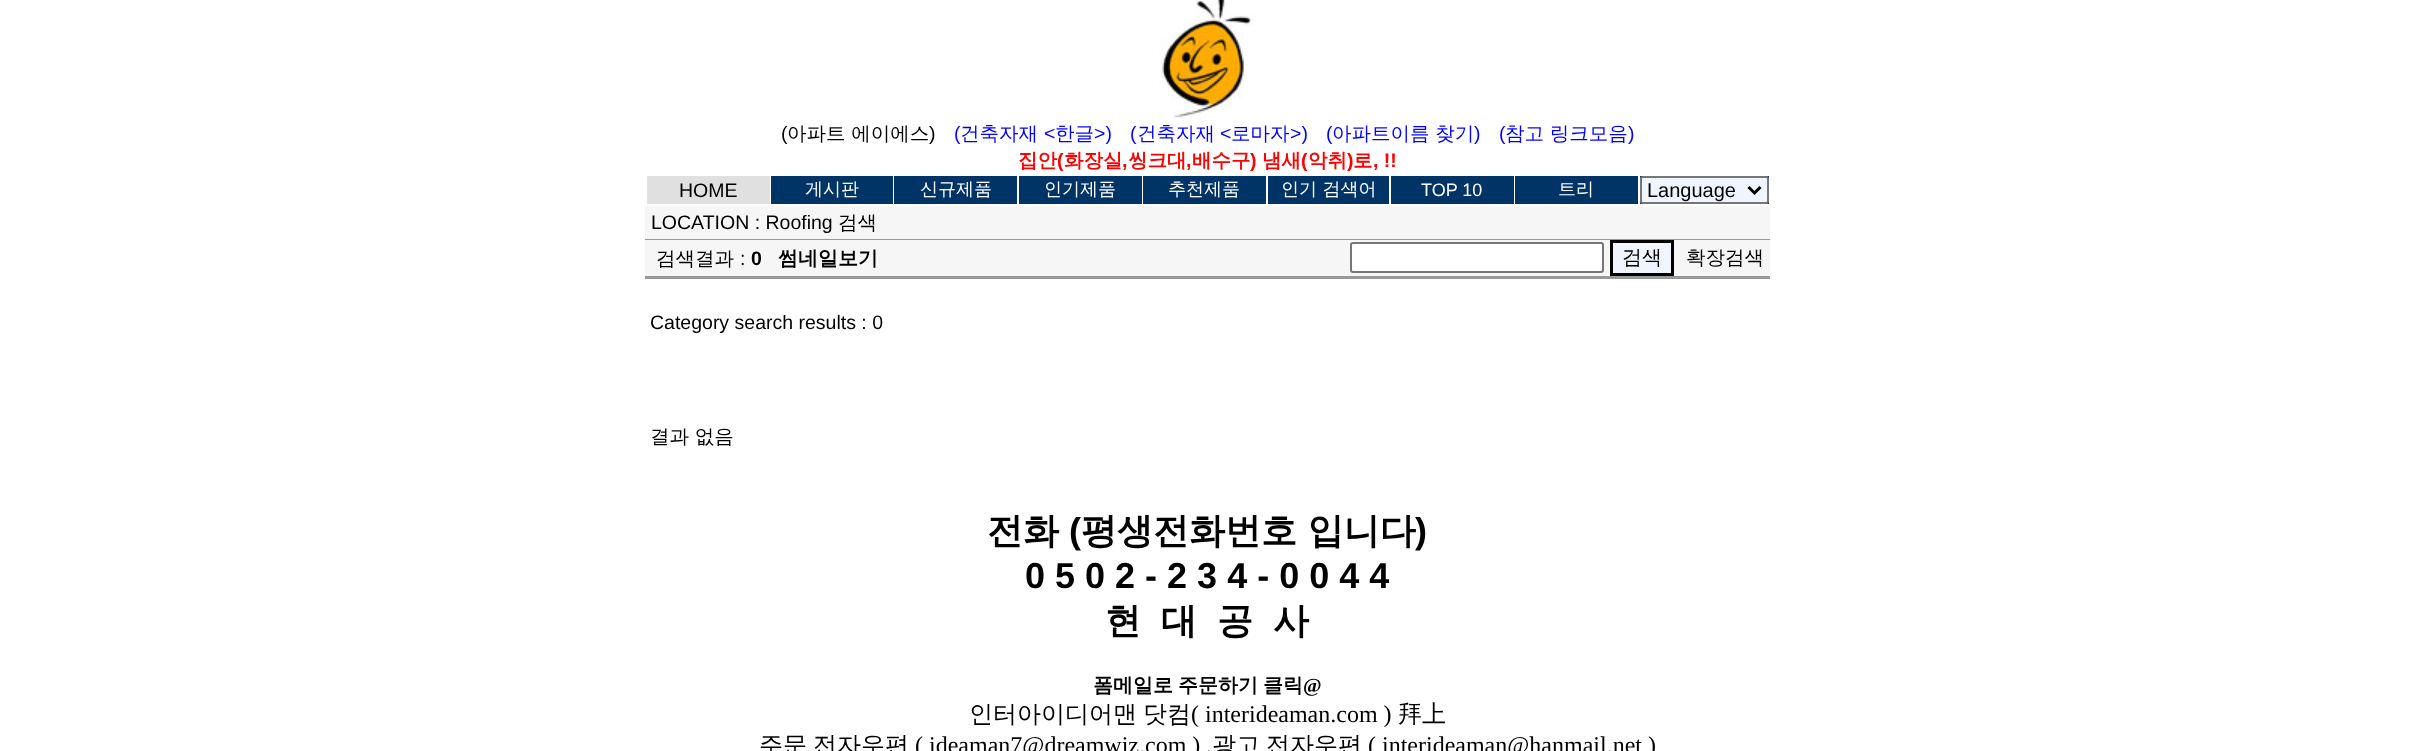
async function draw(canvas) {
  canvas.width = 2415;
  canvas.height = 751;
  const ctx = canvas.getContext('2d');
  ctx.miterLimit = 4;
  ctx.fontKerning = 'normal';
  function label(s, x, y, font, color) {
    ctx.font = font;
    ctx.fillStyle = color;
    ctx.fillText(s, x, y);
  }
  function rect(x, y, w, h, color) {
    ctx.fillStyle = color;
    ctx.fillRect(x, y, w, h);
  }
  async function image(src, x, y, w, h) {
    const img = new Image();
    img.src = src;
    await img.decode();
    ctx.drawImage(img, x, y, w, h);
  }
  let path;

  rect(0, 0, 2415, 751, '#fff');
  await image('assets/img1.png', 1159, 0, 96, 119);
  label('(', 781, 140, '19.5px Liberation Sans', '#000');
  label('아파트 에이에스', 787, 140, '500 19.5px WenQuanYi Zen Hei', '#000');
  label(')', 929, 140, '19.5px Liberation Sans', '#000');
  label('(', 954, 140, '19.5px Liberation Sans', '#00f');
  label('건축자재', 960, 140, '500 19.5px WenQuanYi Zen Hei', '#00f');
  label('<', 1044, 140, '19.5px Liberation Sans', '#00f');
  label('한글', 1055, 140, '500 19.5px WenQuanYi Zen Hei', '#00f');
  label('>)', 1094, 140, '19.5px Liberation Sans', '#00f');
  label('(', 1130, 140, '19.5px Liberation Sans', '#00f');
  label('건축자재', 1137, 140, '500 19.5px WenQuanYi Zen Hei', '#00f');
  label('<', 1220, 140, '19.5px Liberation Sans', '#00f');
  label('로마자', 1231, 140, '500 19.5px WenQuanYi Zen Hei', '#00f');
  label('>)', 1290, 140, '19.5px Liberation Sans', '#00f');
  label('(', 1326, 140, '19.5px Liberation Sans', '#00f');
  label('아파트이름 찾기', 1332, 140, '500 19.5px WenQuanYi Zen Hei', '#00f');
  label(')', 1474, 140, '19.5px Liberation Sans', '#00f');
  label('(', 1499, 140, '19.5px Liberation Sans', '#00f');
  label('참고 링크모음', 1505, 140, '500 19.5px WenQuanYi Zen Hei', '#00f');
  label(')', 1628, 140, '19.5px Liberation Sans', '#00f');
  label('집안', 1018, 167, 'bold 19.5px WenQuanYi Zen Hei', '#f00');
  label('(', 1057, 167, 'bold 19.5px Liberation Sans', '#f00');
  label('화장실', 1064, 167, 'bold 19.5px WenQuanYi Zen Hei', '#f00');
  label(',', 1122, 167, 'bold 19.5px Liberation Sans', '#f00');
  label('씽크대', 1128, 167, 'bold 19.5px WenQuanYi Zen Hei', '#f00');
  label(',', 1186, 167, 'bold 19.5px Liberation Sans', '#f00');
  label('배수구', 1192, 167, 'bold 19.5px WenQuanYi Zen Hei', '#f00');
  label(')', 1250, 167, 'bold 19.5px Liberation Sans', '#f00');
  label('냄새', 1262, 167, 'bold 19.5px WenQuanYi Zen Hei', '#f00');
  label('(', 1301, 167, 'bold 19.5px Liberation Sans', '#f00');
  label('악취', 1308, 167, 'bold 19.5px WenQuanYi Zen Hei', '#f00');
  label(')', 1347, 167, 'bold 19.5px Liberation Sans', '#f00');
  label('로', 1353, 167, 'bold 19.5px WenQuanYi Zen Hei', '#f00');
  label(', !!', 1373, 167, 'bold 19.5px Liberation Sans', '#f00');
  rect(647, 176, 123, 28, '#e0e0e0');
  label('HOME', 679, 197, '19.5px Liberation Sans', '#000');
  rect(771, 176, 122, 28, '#036');
  label('게시판', 805, 195, '500 18px WenQuanYi Zen Hei', '#fff');
  rect(894, 176, 123, 28, '#036');
  label('신규제품', 920, 195, '500 18px WenQuanYi Zen Hei', '#fff');
  rect(1019, 176, 123, 28, '#036');
  label('인기제품', 1044, 195, '500 18px WenQuanYi Zen Hei', '#fff');
  rect(1143, 176, 123, 28, '#036');
  label('추천제품', 1168, 195, '500 18px WenQuanYi Zen Hei', '#fff');
  rect(1268, 176, 121, 28, '#036');
  label('인기 검색어', 1281, 195, '500 18px WenQuanYi Zen Hei', '#fff');
  rect(1391, 176, 123, 28, '#036');
  label('TOP 10', 1421, 196, '18px Liberation Sans', '#fff');
  rect(1515, 176, 123, 28, '#036');
  label('트리', 1558, 195, '500 18px WenQuanYi Zen Hei', '#fff');
  rect(1640, 176, 129, 28, '#036');
  ctx.fillStyle = '#f0f4ff';
  ctx.beginPath();
  ctx.roundRect(1641, 177, 127, 26, 2);
  ctx.fill();
  ctx.strokeStyle = '#767676';
  ctx.lineWidth = 2;
  ctx.stroke();
  path = new Path2D('M1748.5 187L1754.5 193L1760.5 187');
  ctx.strokeStyle = '#000';
  ctx.lineWidth = 3;
  ctx.stroke(path);
  label('Language', 1647, 197, '20px Liberation Sans', '#000');
  rect(645, 206, 1125, 33, '#f6f6f6');
  label('LOCATION : Roofing', 651, 229, '19.5px Liberation Sans', '#000');
  label('검색', 838, 229, '500 19.5px WenQuanYi Zen Hei', '#000');
  rect(645, 239, 1125, 1, '#999');
  rect(645, 240, 1125, 36, '#f6f6f6');
  label('검색결과', 656, 265, '500 19.5px WenQuanYi Zen Hei', '#000');
  label(':', 740, 265, '19.5px Liberation Sans', '#000');
  label('0', 751, 265, 'bold 19.5px Liberation Sans', '#000');
  label('썸네일보기', 778, 265, 'bold 20px WenQuanYi Zen Hei', '#000');
  ctx.fillStyle = '#fff';
  ctx.beginPath();
  ctx.roundRect(1351, 243, 252, 29, 2);
  ctx.fill();
  ctx.strokeStyle = '#767676';
  ctx.lineWidth = 2;
  ctx.stroke();
  ctx.fillStyle = '#f0f4ff';
  ctx.beginPath();
  ctx.rect(1611.5, 241.5, 61, 33);
  ctx.fill();
  ctx.strokeStyle = '#000';
  ctx.lineWidth = 3;
  ctx.stroke();
  label('검색', 1622, 264, '500 20px WenQuanYi Zen Hei', '#000');
  label('확장검색', 1686, 264, '500 19.5px WenQuanYi Zen Hei', '#000');
  rect(645, 276, 1125, 3, '#999');
  label('Category search results : 0', 650, 329, '19.5px Liberation Sans', '#000');
  label('결과 없음', 650, 443, '500 19.5px WenQuanYi Zen Hei', '#000');
  label('전화', 987, 543, 'bold 36px WenQuanYi Zen Hei', '#000');
  label('(', 1069, 543, 'bold 36px Liberation Sans', '#000');
  label('평생전화번호 입니다', 1081, 543, 'bold 36px WenQuanYi Zen Hei', '#000');
  label(')', 1415, 543, 'bold 36px Liberation Sans', '#000');
  label('0 5 0 2 - 2 3 4 - 0 0 4 4', 1025, 588, 'bold 36px Liberation Sans', '#000');
  label('현', 1105, 633, 'bold 36px WenQuanYi Zen Hei', '#000');
  label('대', 1161, 633, 'bold 36px WenQuanYi Zen Hei', '#000');
  label('공', 1217, 633, 'bold 36px WenQuanYi Zen Hei', '#000');
  label('사', 1273, 633, 'bold 36px WenQuanYi Zen Hei', '#000');
  ctx.wordSpacing = '-1px';
  label('폼메일로 주문하기 클릭', 1093, 692, 'bold 20px WenQuanYi Zen Hei', '#000');
  ctx.wordSpacing = '0px';
  label('@', 1303, 692, 'bold 20px Liberation Serif', '#000');
  label('인터아이디어맨', 969, 722, '500 24px WenQuanYi Zen Hei', '#000');
  label('닷컴', 1143, 722, '500 24px WenQuanYi Zen Hei', '#000');
  label('( interideaman.com )', 1191, 722, '24px Liberation Serif', '#000');
  label('拜上', 1398, 722, '500 24px WenQuanYi Zen Hei', '#000');
  label('주문', 759, 753, '500 24px WenQuanYi Zen Hei', '#000');
  label('전자우편', 813, 753, '500 24px WenQuanYi Zen Hei', '#000');
  label('( ideaman7@dreamwiz.com ) ,', 915, 753, '24px Liberation Serif', '#000');
  label('광고', 1212, 753, '500 24px WenQuanYi Zen Hei', '#000');
  label('전자우편', 1266, 753, '500 24px WenQuanYi Zen Hei', '#000');
  label('( interideaman@hanmail.net )', 1368, 753, '24px Liberation Serif', '#000');
}

draw(document.querySelector('canvas'));
